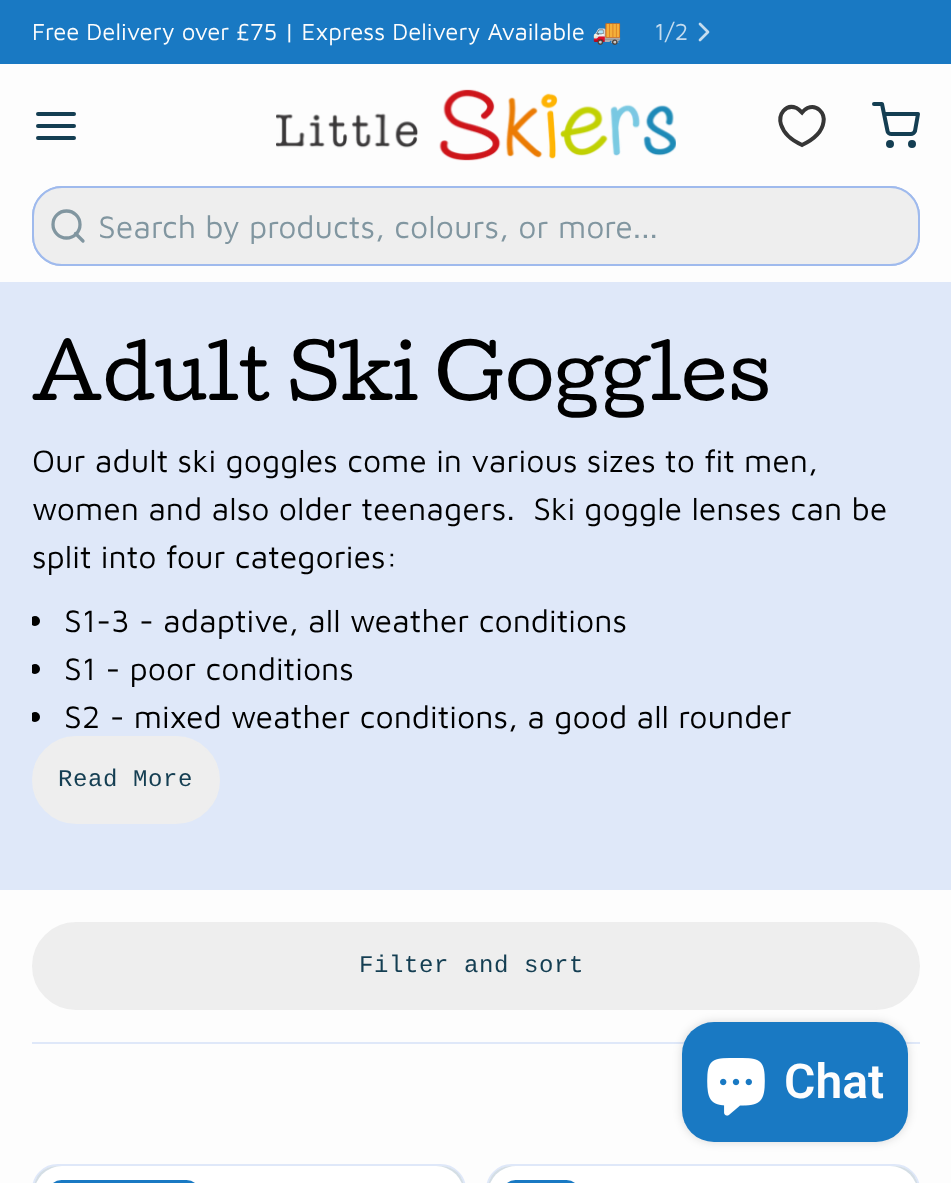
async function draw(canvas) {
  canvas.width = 951;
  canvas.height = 1183;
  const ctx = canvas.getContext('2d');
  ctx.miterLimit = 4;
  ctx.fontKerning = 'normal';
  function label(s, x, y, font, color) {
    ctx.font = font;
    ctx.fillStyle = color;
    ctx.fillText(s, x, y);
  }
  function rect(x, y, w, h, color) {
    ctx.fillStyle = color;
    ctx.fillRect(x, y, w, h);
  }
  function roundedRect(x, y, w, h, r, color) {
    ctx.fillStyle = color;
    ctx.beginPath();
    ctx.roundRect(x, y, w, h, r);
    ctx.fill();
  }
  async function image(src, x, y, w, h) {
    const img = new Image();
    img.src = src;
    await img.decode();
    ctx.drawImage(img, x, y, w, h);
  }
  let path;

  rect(0, 0, 951, 1183, '#fdfdfd');
  rect(0, 0, 951, 64, '#1979c3');
  label('Free Delivery over £75 | Express Delivery Available', 32, 40, '24px Maven Pro', '#fdfdfd');
  label('🚚', 592, 40, '24px Noto Color Emoji', '#fdfdfd');
  label('1/2', 654, 40, '24px Maven Pro', '#c4dcef');
  path = new Path2D('M700 40L708 32L700 24');
  ctx.strokeStyle = '#c4dcef';
  ctx.lineWidth = 2.7;
  ctx.lineCap = 'round';
  ctx.lineJoin = 'round';
  ctx.stroke(path);
  path = new Path2D('M38 126H74M38 114H74M38 138H74');
  ctx.strokeStyle = '#143e52';
  ctx.lineWidth = 4;
  ctx.stroke(path);
  await image('assets/img1.png', 276, 89, 400, 72);
  path = new Path2D('M802 145C793 141 784 134 781 124.5C778 114.5 785.5 103.5 796.5 108C798.5 109 800 110.5 802 112.5C803.5 110.5 805.5 109 807.5 108C817 104 825 113 823.5 122C822 133 811.5 140.5 802 145Z');
  ctx.strokeStyle = '#363636';
  ctx.lineCap = 'butt';
  ctx.lineJoin = 'miter';
  ctx.stroke(path);
  ctx.beginPath();
  ctx.arc(890, 144, 2, 0, 2 * Math.PI);
  ctx.strokeStyle = '#143e52';
  ctx.stroke();
  ctx.beginPath();
  ctx.arc(912, 144, 2, 0, 2 * Math.PI);
  ctx.stroke();
  path = new Path2D('M874 104H882L887.5 131C887.5 132.5 889.5 134 891.5 134H911C912.5 134 914.5 132.5 915 131L918 114H884');
  ctx.lineCap = 'round';
  ctx.lineJoin = 'round';
  ctx.stroke(path);
  ctx.beginPath();
  ctx.roundRect(33, 187, 886, 78, 29);
  ctx.strokeStyle = '#9fbaed';
  ctx.lineWidth = 2;
  ctx.lineJoin = 'miter';
  ctx.stroke();
  ctx.fillStyle = '#eee';
  ctx.beginPath();
  ctx.roundRect(33, 187, 886, 78, 29);
  ctx.fill();
  ctx.stroke();
  ctx.beginPath();
  ctx.arc(66.5, 224.5, 13.5, 0, 2 * Math.PI);
  ctx.strokeStyle = '#8196a0';
  ctx.lineWidth = 3.3;
  ctx.stroke();
  path = new Path2D('M83 241L75.5 233.5');
  ctx.lineJoin = 'round';
  ctx.stroke(path);
  ctx.save();
  ctx.beginPath();
  ctx.rect(98, 208, 796, 36);
  ctx.clip();
  label('Search by products, colours, or more...', 98, 238, '32px Maven Pro', '#8196a0');
  ctx.restore();
  rect(0, 282, 951, 608, '#dfe8f9');
  label('Adult Ski Goggles', 32, 400, '72px Cutive', '#000');
  label('Our adult ski goggles come in various sizes to fit men,', 32, 472, '32px Maven Pro', '#000');
  label('women and also older teenagers.  Ski goggle lenses can be', 32, 520, '32px Maven Pro', '#000');
  label('split into four categories:', 32, 568, '32px Maven Pro', '#000');
  ctx.save();
  ctx.beginPath();
  ctx.rect(32, 436, 888, 300);
  ctx.clip();
  ctx.beginPath();
  ctx.arc(35, 621, 5, 0, 2 * Math.PI);
  ctx.fill();
  ctx.restore();
  label('S1-3 - adaptive, all weather conditions', 64, 632, '32px Maven Pro', '#000');
  ctx.save();
  ctx.beginPath();
  ctx.rect(32, 436, 888, 300);
  ctx.clip();
  ctx.beginPath();
  ctx.arc(35, 669, 5, 0, 2 * Math.PI);
  ctx.fill();
  ctx.restore();
  label('S1 - poor conditions', 64, 680, '32px Maven Pro', '#000');
  ctx.save();
  ctx.beginPath();
  ctx.rect(32, 436, 888, 300);
  ctx.clip();
  ctx.beginPath();
  ctx.arc(35, 717, 5, 0, 2 * Math.PI);
  ctx.fill();
  ctx.restore();
  label('S2 - mixed weather conditions, a good all rounder', 64, 728, '32px Maven Pro', '#000');
  ctx.fillStyle = '#eee';
  ctx.beginPath();
  ctx.roundRect(33, 737, 186, 86, 43);
  ctx.fill();
  ctx.strokeStyle = '#eee';
  ctx.lineWidth = 2;
  ctx.lineJoin = 'miter';
  ctx.stroke();
  ctx.letterSpacing = '0.6px';
  label('Read More', 58, 786, '24px Liberation Mono', '#143e52');
  rect(32, 1042, 888, 2, '#dfe8f9');
  ctx.fillStyle = '#eee';
  ctx.beginPath();
  ctx.roundRect(33, 923, 886, 86, 43);
  ctx.fill();
  ctx.stroke();
  label('Filter and sort', 359, 972, '24px Liberation Mono', '#143e52');
  ctx.beginPath();
  ctx.roundRect(33, 1165, 432, 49, 29);
  ctx.strokeStyle = '#dfe8f9';
  ctx.stroke();
  roundedRect(34, 1166, 430, 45, 28, '#d4dee5');
  await image('assets/img2.png', 36, 1166, 426, 17);
  roundedRect(48, 1180, 152, 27, 24, '#1979c3');
  ctx.beginPath();
  ctx.roundRect(487, 1165, 432, 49, 29);
  ctx.stroke();
  roundedRect(488, 1166, 430, 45, 28, '#d4dee5');
  await image('assets/img3.png', 490, 1166, 426, 17);
  roundedRect(502, 1180, 78, 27, 24, '#1979c3');
  ctx.fillStyle = '#00000026';
  ctx.filter = 'blur(5px)';
  ctx.beginPath();
  ctx.roundRect(682, 1022, 226, 120, 32);
  ctx.fill();
  ctx.filter = 'none';
  roundedRect(682, 1022, 226, 120, 32, '#1979c3');
  await image('assets/img4.png', 707, 1058, 58, 58);
  ctx.letterSpacing = '0px';
  label('Chat', 784, 1098, '600 48px Roboto', '#fdfdfd');
}

draw(document.querySelector('canvas'));
